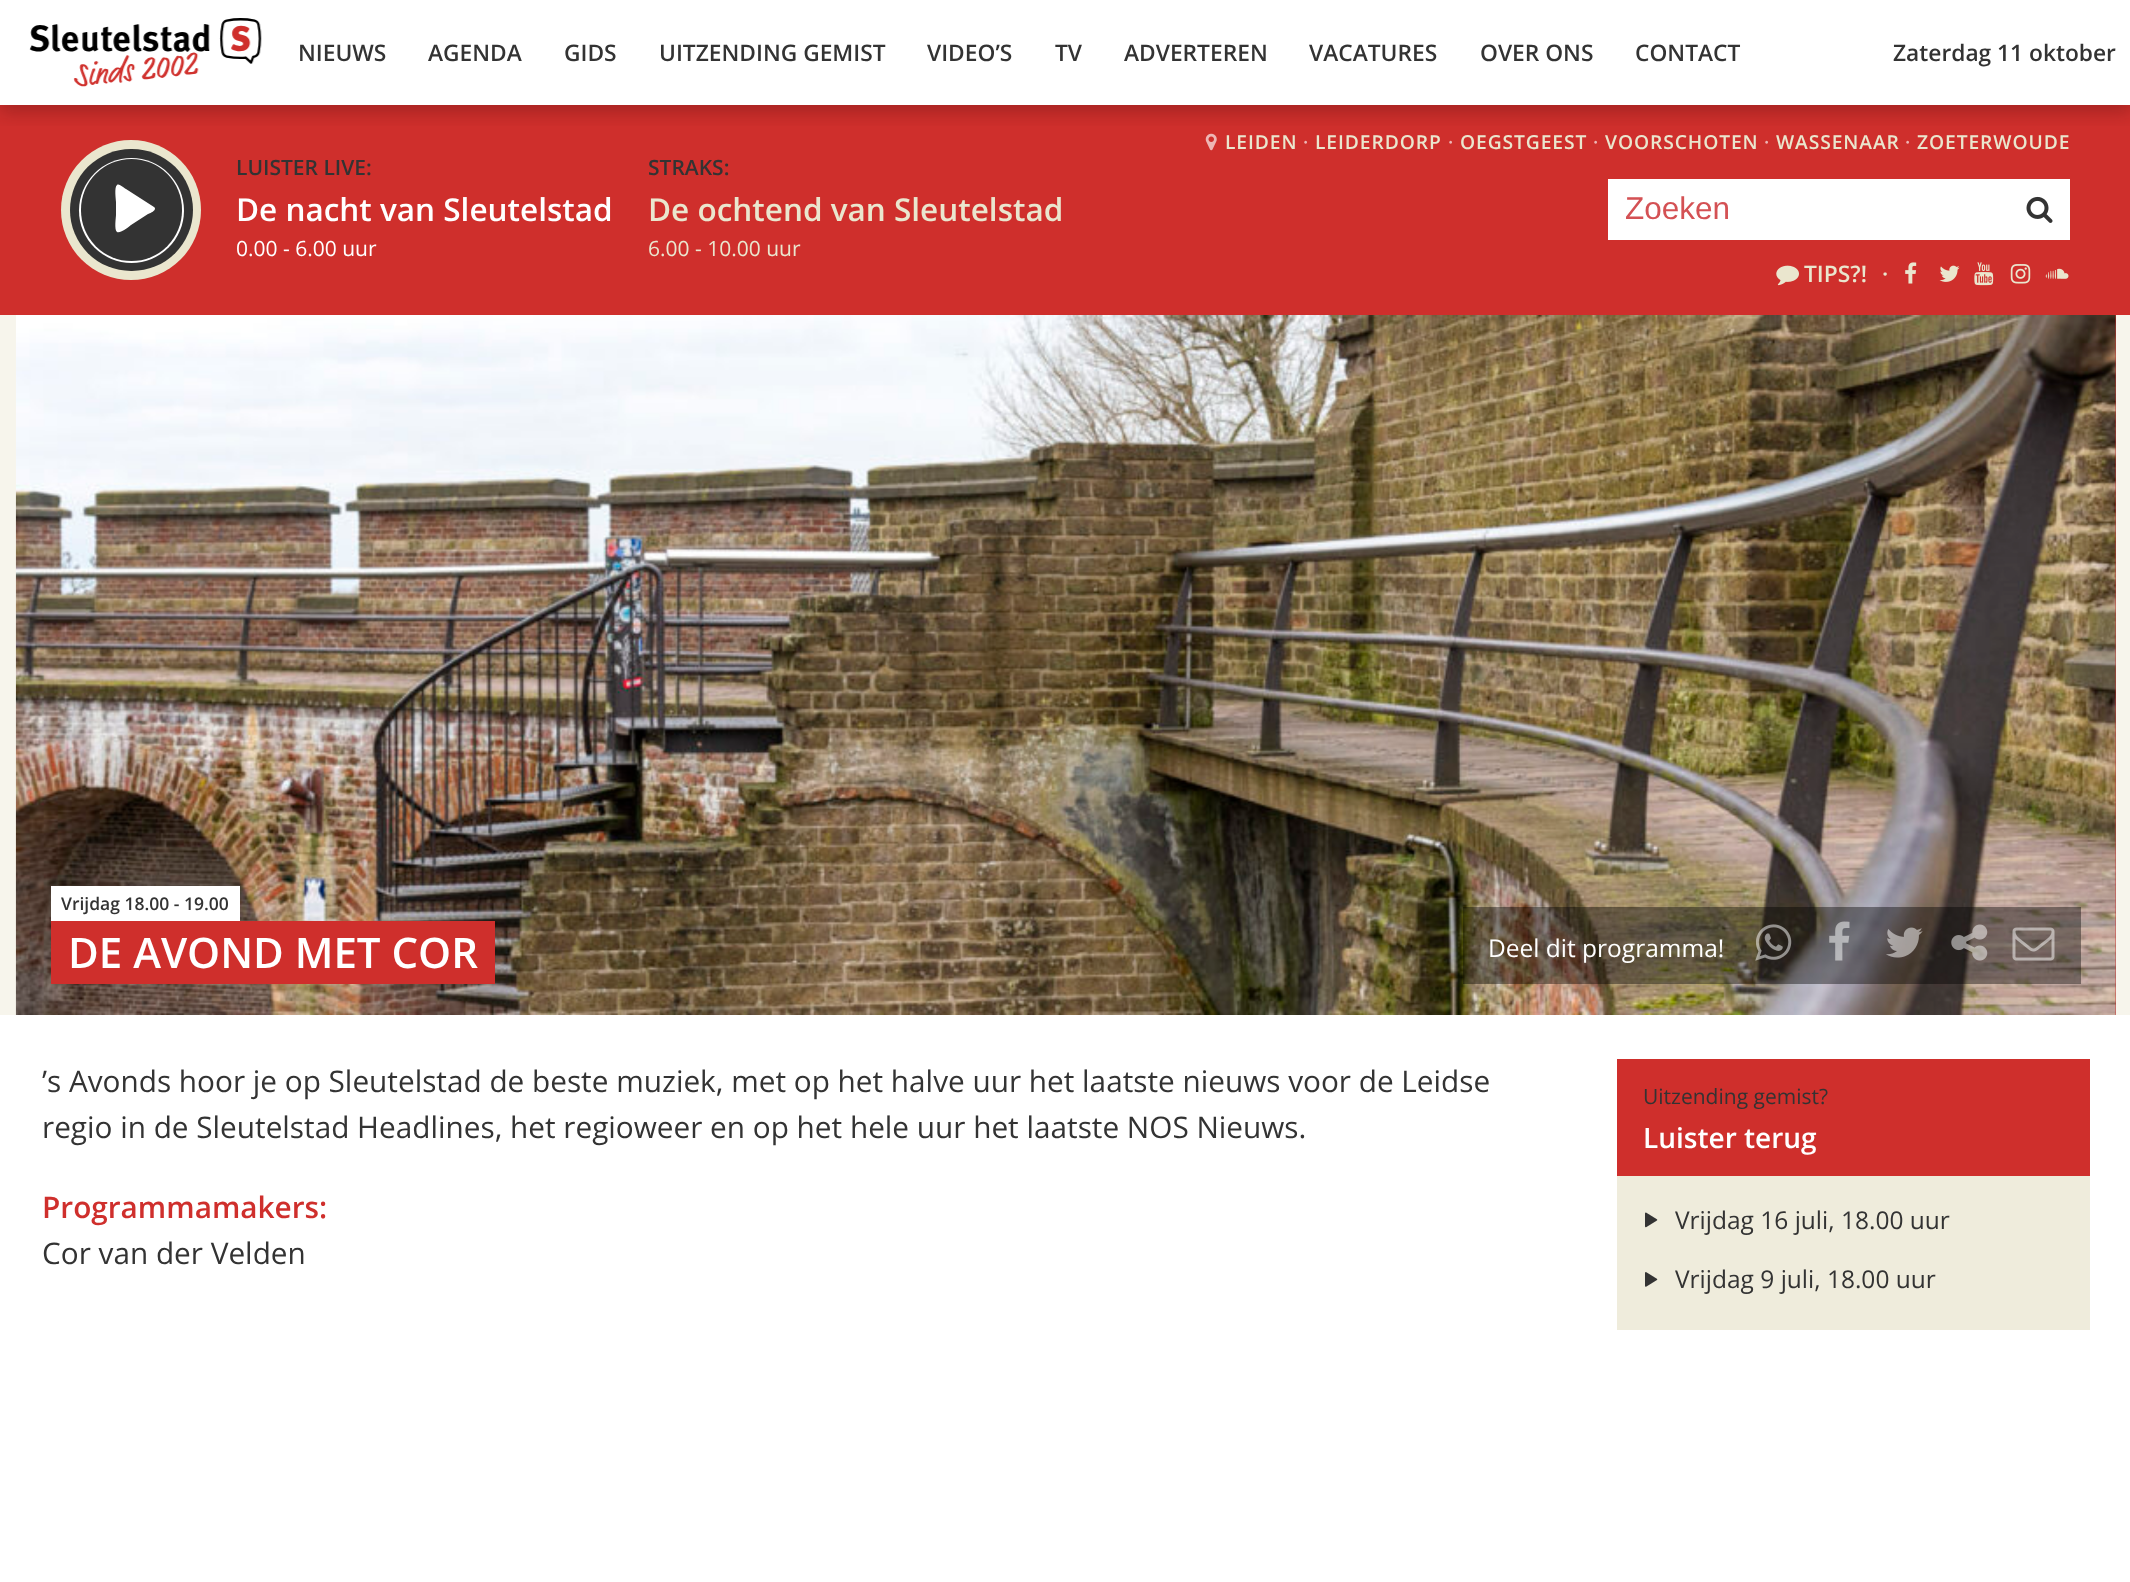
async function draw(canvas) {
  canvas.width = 2130;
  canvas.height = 1582;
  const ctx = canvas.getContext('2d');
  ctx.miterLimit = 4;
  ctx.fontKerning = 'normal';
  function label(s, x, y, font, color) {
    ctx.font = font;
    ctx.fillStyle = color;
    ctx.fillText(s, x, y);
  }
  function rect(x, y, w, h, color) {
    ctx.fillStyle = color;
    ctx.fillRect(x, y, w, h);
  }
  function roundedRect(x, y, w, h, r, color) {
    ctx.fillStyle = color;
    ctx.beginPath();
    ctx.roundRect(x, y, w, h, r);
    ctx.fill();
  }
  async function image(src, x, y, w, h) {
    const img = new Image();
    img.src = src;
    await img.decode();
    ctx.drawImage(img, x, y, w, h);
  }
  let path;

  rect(0, 0, 2130, 1582, '#fff');
  rect(0, 105, 2130, 210, '#cf2f2c');
  await image('assets/img2.png', 1205, 133, 12, 18);
  ctx.save();
  ctx.beginPath();
  ctx.rect(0, 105, 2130, 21);
  ctx.clip();
  ctx.fillStyle = '#430b0a4d';
  ctx.filter = 'blur(9px)';
  ctx.beginPath();
  ctx.rect(0, 7, 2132, 105);
  ctx.fill();
  ctx.filter = 'none';
  ctx.restore();
  await image('assets/img1.png', 29, 18, 233, 69);
  label('NIEUWS', 298, 61, '600 22.75px Open Sans', '#333');
  label('AGENDA', 428, 61, '600 22.75px Open Sans', '#333');
  label('GIDS', 564, 61, '600 22.75px Open Sans', '#333');
  label('UITZENDING GEMIST', 659, 61, '600 22.75px Open Sans', '#333');
  label('VIDEO’S', 927, 61, '600 22.75px Open Sans', '#333');
  label('TV', 1055, 61, '600 22.75px Open Sans', '#333');
  label('ADVERTEREN', 1124, 61, '600 22.75px Open Sans', '#333');
  label('VACATURES', 1309, 61, '600 22.75px Open Sans', '#333');
  label('OVER ONS', 1480, 61, '600 22.75px Open Sans', '#333');
  label('CONTACT', 1635, 61, '600 22.75px Open Sans', '#333');
  label('Zaterdag 11 oktober', 1893, 61, '600 22.75px Open Sans', '#333');
  ctx.fillStyle = '#eae6ce';
  ctx.beginPath();
  ctx.arc(131, 210, 70, 0, 2 * Math.PI);
  ctx.fill();
  roundedRect(70, 149, 123, 122, 61, '#333');
  ctx.fillStyle = '#fff';
  ctx.beginPath();
  ctx.arc(131.5, 210.5, 52.5, 0, 2 * Math.PI);
  ctx.fill();
  roundedRect(81, 159, 101, 102, 50.5, '#333');
  ctx.fillStyle = '#fff';
  path = new Path2D('M154 207C158 210 149 214 148 214L131 225C130 226 120 234 117 232C114 230 116 217 116 215V202C116 200 114 187 117 185C119 183 125 189 126 189Z');
  ctx.fill(path);
  label('LUISTER LIVE:', 236, 175, '600 21px Open Sans', '#333');
  label('De nacht van Sleutelstad', 236, 221, '600 31.5px Open Sans', '#fff');
  label('0.00 - 6.00 uur', 236, 256, '21px Open Sans', '#fff');
  label('STRAKS:', 648, 175, '600 21px Open Sans', '#333');
  label('De ochtend van Sleutelstad', 648, 221, '600 31.5px Open Sans', '#eae6ce');
  label('6.00 - 10.00 uur', 648, 256, '21px Open Sans', '#eae6ce');
  ctx.letterSpacing = '0.9px';
  label('LEIDEN', 1225, 149, '600 19.25px Open Sans', '#eae6ce');
  label('·', 1303, 149, '600 19.25px Open Sans', '#eeb6b5');
  label('LEIDERDORP', 1315, 149, '600 19.25px Open Sans', '#eae6ce');
  label('·', 1448, 149, '600 19.25px Open Sans', '#eeb6b5');
  label('OEGSTGEEST', 1460, 149, '600 19.25px Open Sans', '#eae6ce');
  label('·', 1593, 149, '600 19.25px Open Sans', '#eeb6b5');
  label('VOORSCHOTEN', 1605, 149, '600 19.25px Open Sans', '#eae6ce');
  label('·', 1764, 149, '600 19.25px Open Sans', '#eeb6b5');
  label('WASSENAAR', 1776, 149, '600 19.25px Open Sans', '#eae6ce');
  label('·', 1905, 149, '600 19.25px Open Sans', '#eeb6b5');
  label('ZOETERWOUDE', 1917, 149, '600 19.25px Open Sans', '#eae6ce');
  rect(1608, 179, 462, 61, '#fff');
  ctx.letterSpacing = '0px';
  label('Zoeken', 1625, 219, '31.5px Liberation Sans', '#d45154');
  await image('assets/img3.png', 2026, 196, 27, 27);
  await image('assets/img4.png', 1776, 265, 23, 21);
  label('TIPS?!', 1804, 282, '600 22.75px Open Sans', '#eae6ce');
  label('·', 1882, 282, '600 22.75px Open Sans', '#eae6ce');
  await image('assets/img5.png', 1905, 262, 12, 22);
  await image('assets/img6.png', 1939, 265, 21, 17);
  await image('assets/img7.png', 1974, 262, 20, 24);
  await image('assets/img8.png', 2010, 264, 21, 20);
  await image('assets/img9.png', 2045, 268, 24, 11);
  rect(0, 315, 2130, 700, '#f7f5ec');
  rect(2115, 315, 1, 700, '#cf2f2c');
  await image('assets/img10.png', 15, 315, 2101, 700);
  rect(51, 886, 189, 35, '#fff');
  label('Vrijdag 18.00 - 19.00', 61, 910, '600 17.5px Open Sans', '#333');
  rect(51, 921, 444, 63, '#cf2f2c');
  label('DE AVOND MET COR', 68, 968, '600 42px Open Sans', '#fff');
  rect(1463, 907, 618, 77, '#00000066');
  label('Deel dit programma!', 1488, 957, '24.5px Open Sans', '#fff');
  await image('assets/img11.png', 1755, 924, 37, 37);
  await image('assets/img12.png', 1829, 921, 21, 40);
  await image('assets/img13.png', 1886, 927, 37, 31);
  await image('assets/img14.png', 1951, 924, 37, 37);
  await image('assets/img15.png', 2012, 927, 43, 34);
  label('’s Avonds hoor je op Sleutelstad de beste muziek, met op het halve uur het laatste nieuws voor de Leidse', 42, 1092, '29.75px Open Sans', '#333');
  label('regio in de Sleutelstad Headlines, het regioweer en op het hele uur het laatste NOS Nieuws.', 42, 1138, '29.75px Open Sans', '#333');
  label('Programmamakers:', 42, 1218, '600 29.75px Open Sans', '#cf2f2c');
  label('Cor van der Velden', 42, 1264, '29.75px Open Sans', '#333');
  rect(1617, 1059, 473, 117, '#cf2f2c');
  label('Uitzending gemist?', 1643, 1104, '21px Open Sans', '#333');
  label('Luister terug', 1643, 1148, '600 28px Open Sans', '#fff');
  rect(1617, 1176, 473, 154, '#efecdc');
  await image('assets/img16.png', 1645, 1212, 13, 16);
  label('Vrijdag 16 juli, 18.00 uur', 1675, 1229, '24.5px Open Sans', '#333');
  await image('assets/img17.png', 1645, 1272, 13, 15);
  label('Vrijdag 9 juli, 18.00 uur', 1675, 1288, '24.5px Open Sans', '#333');
}

draw(document.querySelector('canvas'));
